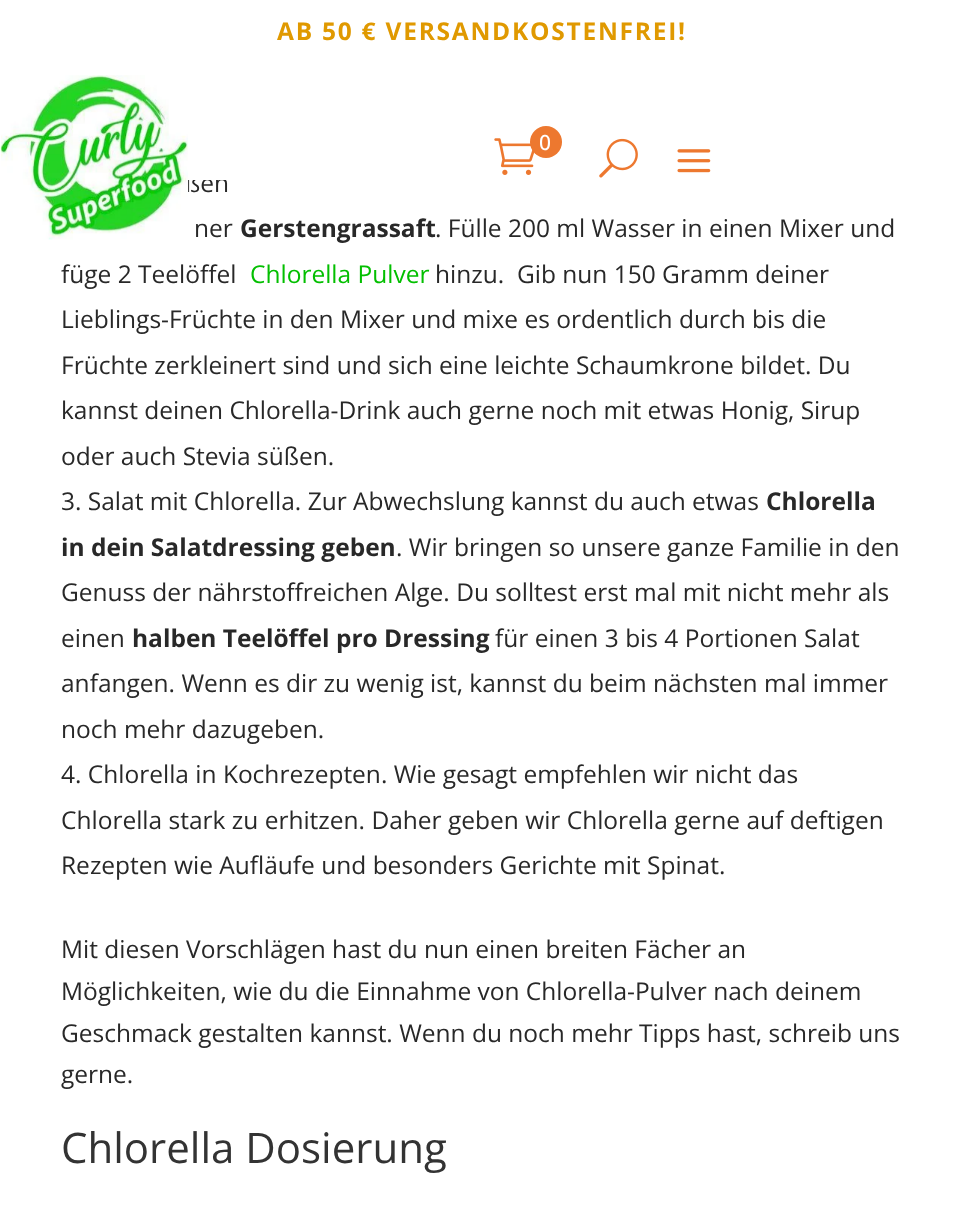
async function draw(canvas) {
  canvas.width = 963;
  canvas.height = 1210;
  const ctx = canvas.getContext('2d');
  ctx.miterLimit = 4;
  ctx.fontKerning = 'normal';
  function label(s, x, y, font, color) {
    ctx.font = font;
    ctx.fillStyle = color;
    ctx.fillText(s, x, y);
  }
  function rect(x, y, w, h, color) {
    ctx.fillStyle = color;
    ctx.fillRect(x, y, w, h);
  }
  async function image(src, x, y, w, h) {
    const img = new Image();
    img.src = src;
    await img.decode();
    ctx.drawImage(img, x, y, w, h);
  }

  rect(0, 0, 963, 1210, '#fff');
  label('ßen', 185, 192, '24.5px Open Sans', '#282828');
  rect(187, 173, 40, 7, '#fff');
  ctx.letterSpacing = '1.75px';
  label('AB 50 € VERSANDKOSTENFREI!', 277, 40, 'bold 24.5px Open Sans', '#e09900');
  await image('assets/img1.png', 0, 75, 189, 165);
  await image('assets/img2.png', 494, 138, 41, 37);
  ctx.fillStyle = '#ed782f';
  ctx.beginPath();
  ctx.arc(546, 142, 16, 0, 2 * Math.PI);
  ctx.fill();
  ctx.letterSpacing = '0px';
  label('0', 539, 150, '500 21px Open Sans', '#fff');
  await image('assets/img3.png', 599, 138, 39, 40);
  await image('assets/img4.png', 677, 149, 34, 24);
  label('ner', 194, 237, '24.5px Open Sans', '#282828');
  label('Gerstengrassaft', 240, 237, 'bold 24.5px Open Sans', '#282828');
  label('. Fülle 200 ml Wasser in einen Mixer und', 435, 237, '24.5px Open Sans', '#282828');
  label('füge 2 Teelöffel', 61, 283, '24.5px Open Sans', '#282828');
  label('Chlorella Pulver', 250, 283, '24.5px Open Sans', '#03bf00');
  label('hinzu.  Gib nun 150 Gramm deiner', 435, 283, '24.5px Open Sans', '#282828');
  label('Lieblings-Früchte in den Mixer und mixe es ordentlich durch bis die', 61, 328, '24.5px Open Sans', '#282828');
  label('Früchte zerkleinert sind und sich eine leichte Schaumkrone bildet. Du', 61, 374, '24.5px Open Sans', '#282828');
  label('kannst deinen Chlorella-Drink auch gerne noch mit etwas Honig, Sirup', 61, 419, '24.5px Open Sans', '#282828');
  label('oder auch Stevia süßen.', 61, 465, '24.5px Open Sans', '#282828');
  label('3. Salat mit Chlorella. Zur Abwechslung kannst du auch etwas', 61, 510, '24.5px Open Sans', '#282828');
  label('Chlorella', 766, 510, 'bold 24.5px Open Sans', '#282828');
  label('in dein Salatdressing geben', 61, 556, 'bold 24.5px Open Sans', '#282828');
  label('. Wir bringen so unsere ganze Familie in den', 396, 556, '24.5px Open Sans', '#282828');
  label('Genuss der nährstoffreichen Alge. Du solltest erst mal mit nicht mehr als', 61, 601, '24.5px Open Sans', '#282828');
  label('einen', 61, 647, '24.5px Open Sans', '#282828');
  label('halben Teelöffel pro Dressing', 132, 647, 'bold 24.5px Open Sans', '#282828');
  label('für einen 3 bis 4 Portionen Salat', 495, 647, '24.5px Open Sans', '#282828');
  label('anfangen. Wenn es dir zu wenig ist, kannst du beim nächsten mal immer', 61, 692, '24.5px Open Sans', '#282828');
  label('noch mehr dazugeben.', 61, 738, '24.5px Open Sans', '#282828');
  label('4. Chlorella in Kochrezepten. Wie gesagt empfehlen wir nicht das', 61, 783, '24.5px Open Sans', '#282828');
  label('Chlorella stark zu erhitzen. Daher geben wir Chlorella gerne auf deftigen', 61, 829, '24.5px Open Sans', '#282828');
  label('Rezepten wie Aufläufe und besonders Gerichte mit Spinat.', 61, 874, '24.5px Open Sans', '#282828');
  label('Mit diesen Vorschlägen hast du nun einen breiten Fächer an', 61, 958, '24.5px Open Sans', '#282828');
  label('Möglichkeiten, wie du die Einnahme von Chlorella-Pulver nach deinem', 61, 1000, '24.5px Open Sans', '#282828');
  label('Geschmack gestalten kannst. Wenn du noch mehr Tipps hast, schreib uns', 61, 1042, '24.5px Open Sans', '#282828');
  label('gerne.', 61, 1083, '24.5px Open Sans', '#282828');
  label('Chlorella Dosierung', 61, 1163, '42px Open Sans', '#333');
}

draw(document.querySelector('canvas'));
